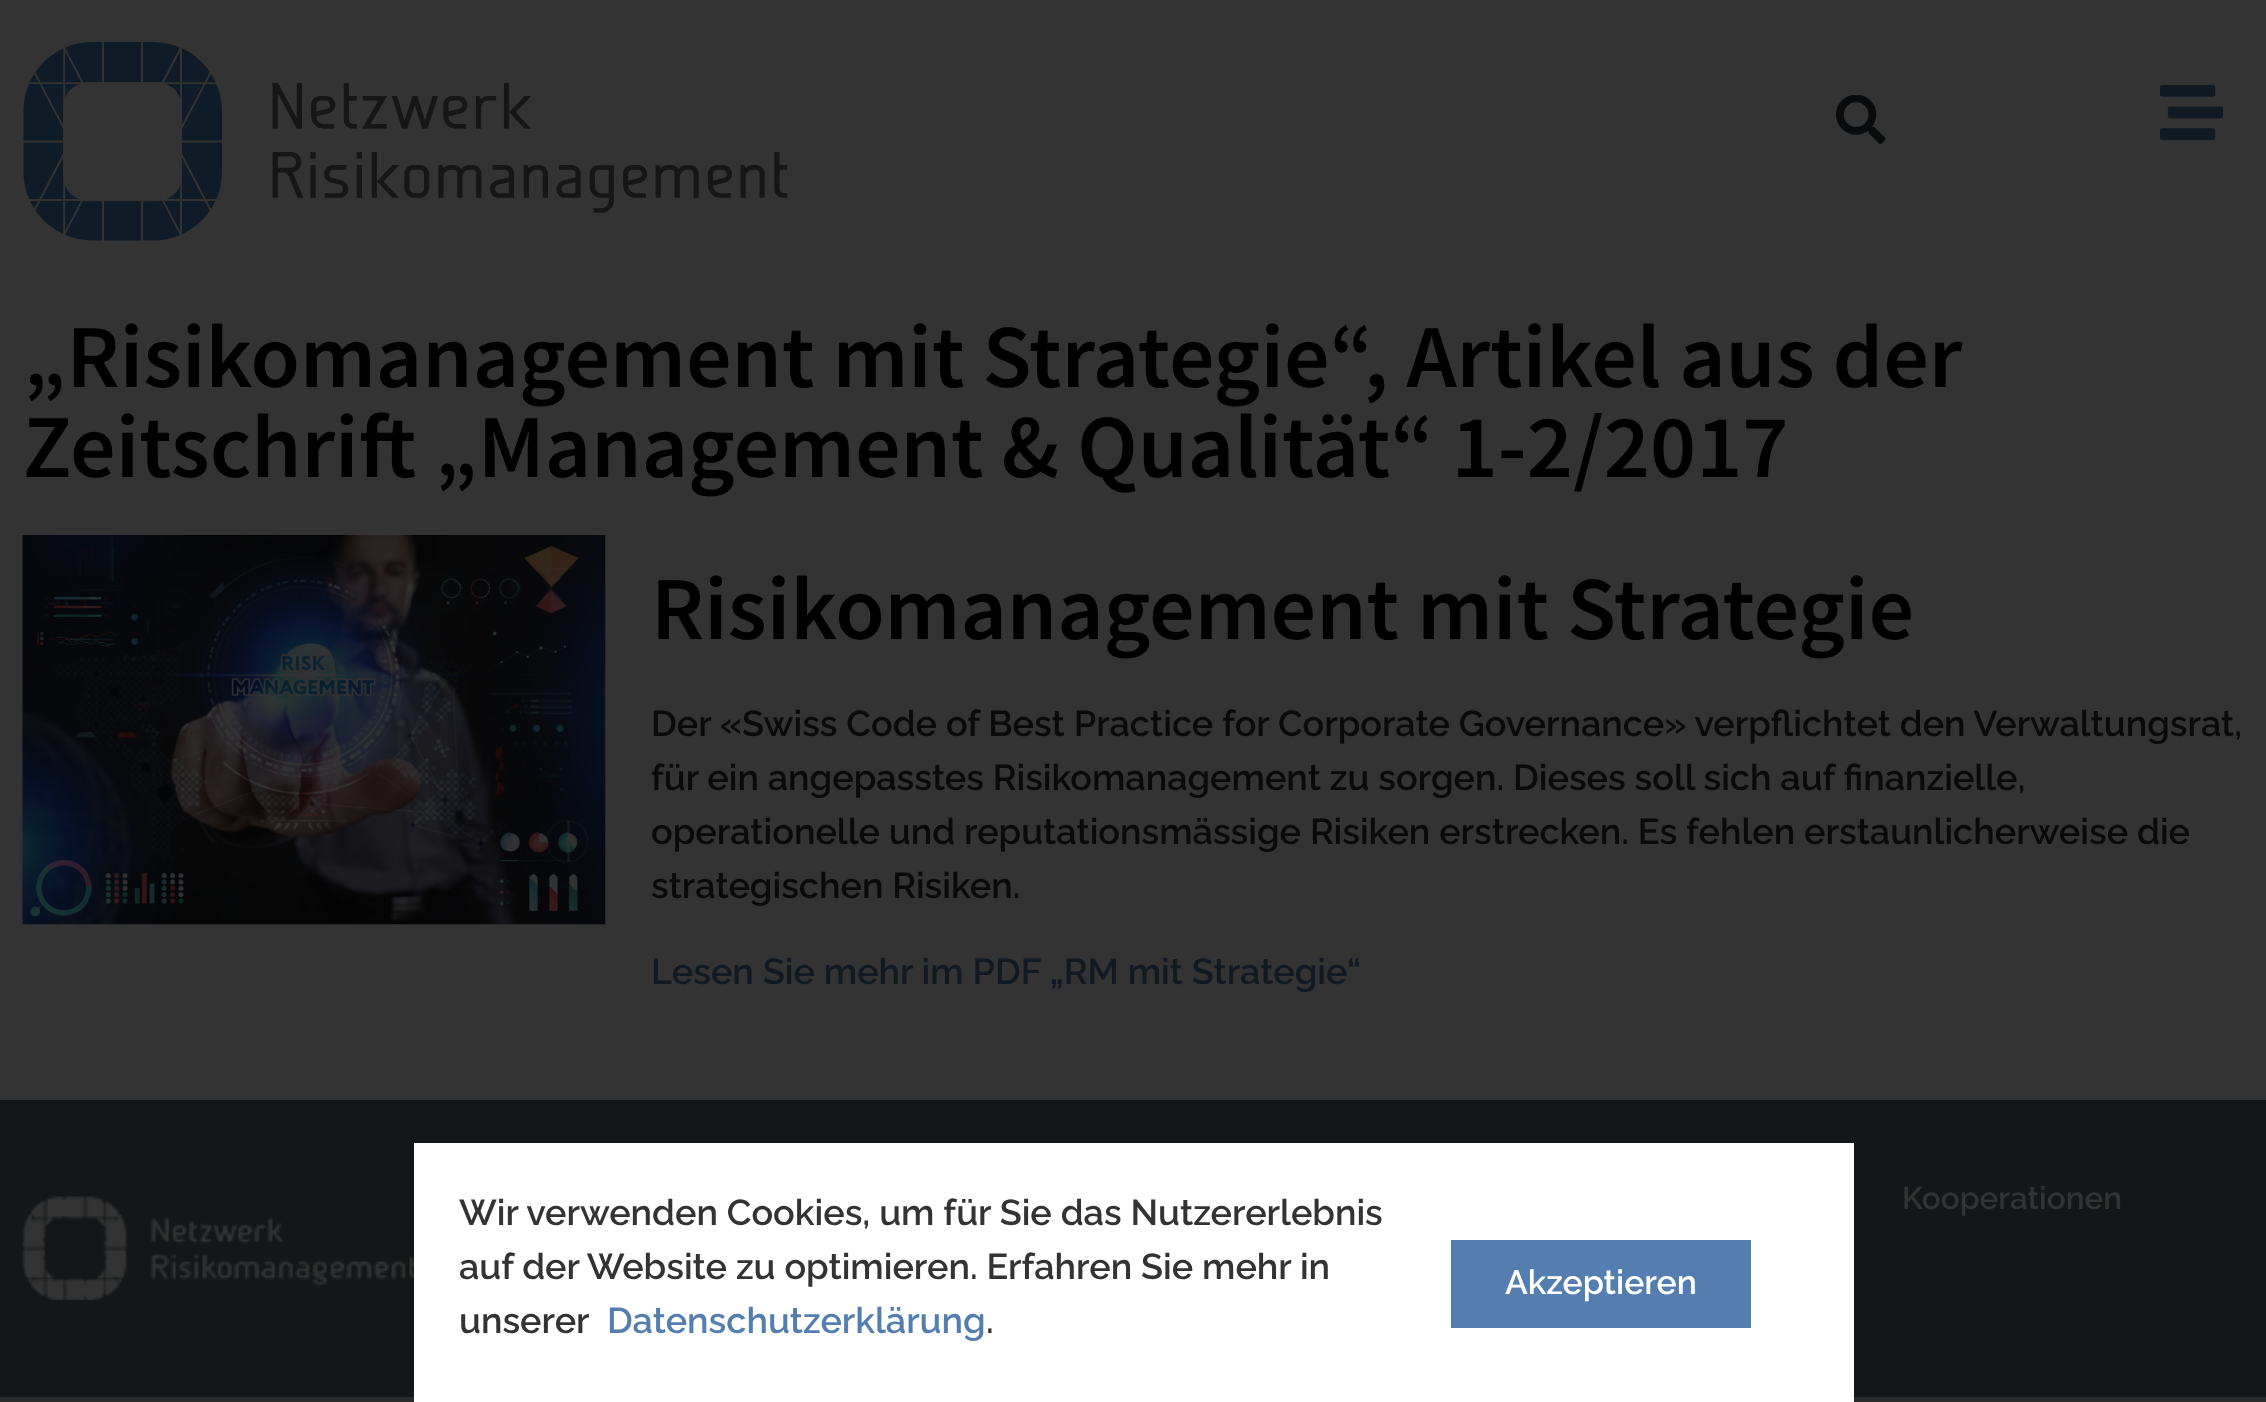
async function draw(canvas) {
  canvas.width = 2266;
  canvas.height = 1402;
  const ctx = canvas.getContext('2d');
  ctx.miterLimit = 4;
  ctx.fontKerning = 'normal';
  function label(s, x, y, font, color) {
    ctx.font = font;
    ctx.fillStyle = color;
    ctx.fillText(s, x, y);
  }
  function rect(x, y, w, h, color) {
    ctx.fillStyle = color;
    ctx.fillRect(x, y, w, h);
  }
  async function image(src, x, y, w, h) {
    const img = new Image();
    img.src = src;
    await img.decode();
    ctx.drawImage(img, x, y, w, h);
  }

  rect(0, 0, 2266, 1402, '#333');
  await image('assets/img1.png', 23, 41, 765, 200);
  await image('assets/img2.png', 1836, 95, 50, 49);
  await image('assets/img3.png', 2160, 84, 63, 57);
  label('„Risikomanagement mit Strategie“, Artikel aus der', 23, 387, '600 90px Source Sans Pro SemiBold', '#000');
  label('Zeitschrift „Management & Qualität“ 1-2/2017', 23, 477, '600 90px Source Sans Pro SemiBold', '#000');
  await image('assets/img4.png', 22, 535, 584, 390);
  label('Risikomanagement mit Strategie', 651, 639, '600 90px Source Sans Pro SemiBold', '#000');
  label('Der «Swiss Code of Best Practice for Corporate Governance» verpflichtet den Verwaltungsrat,', 651, 736, '600 36px Raleway', '#0a0a0a');
  label('für ein angepasstes Risikomanagement zu sorgen. Dieses soll sich auf finanzielle,', 651, 790, '600 36px Raleway', '#0a0a0a');
  label('operationelle und reputationsmässige Risiken erstrecken. Es fehlen erstaunlicherweise die', 651, 844, '600 36px Raleway', '#0a0a0a');
  label('strategischen Risiken.', 651, 898, '600 36px Raleway', '#0a0a0a');
  label('Lesen Sie mehr im PDF „RM mit Strategie“', 651, 984, '600 36px Raleway', '#111923');
  rect(0, 1100, 2266, 297, '#141618');
  rect(0, 1397, 2266, 5, '#2a2a2b');
  rect(414, 1143, 1440, 259, '#fff');
  label('Wir verwenden Cookies, um für Sie das Nutzererlebnis', 459, 1225, '600 36px Raleway', '#333');
  label('auf der Website zu optimieren. Erfahren Sie mehr in', 459, 1279, '600 36px Raleway', '#333');
  label('unserer', 459, 1333, '600 36px Raleway', '#333');
  label('Datenschutzerklärung', 607, 1333, '600 36px Raleway', '#547eaf');
  label('.', 986, 1333, '600 36px Raleway', '#333');
  rect(1451, 1240, 300, 88, '#547eaf');
  label('Akzeptieren', 1505, 1294, '600 33.75px Raleway', '#fff');
  await image('assets/img5.png', 22, 1196, 392, 104);
  label('Kooperationen', 1902, 1209, '600 31.5px Raleway', '#333');
}

draw(document.querySelector('canvas'));
